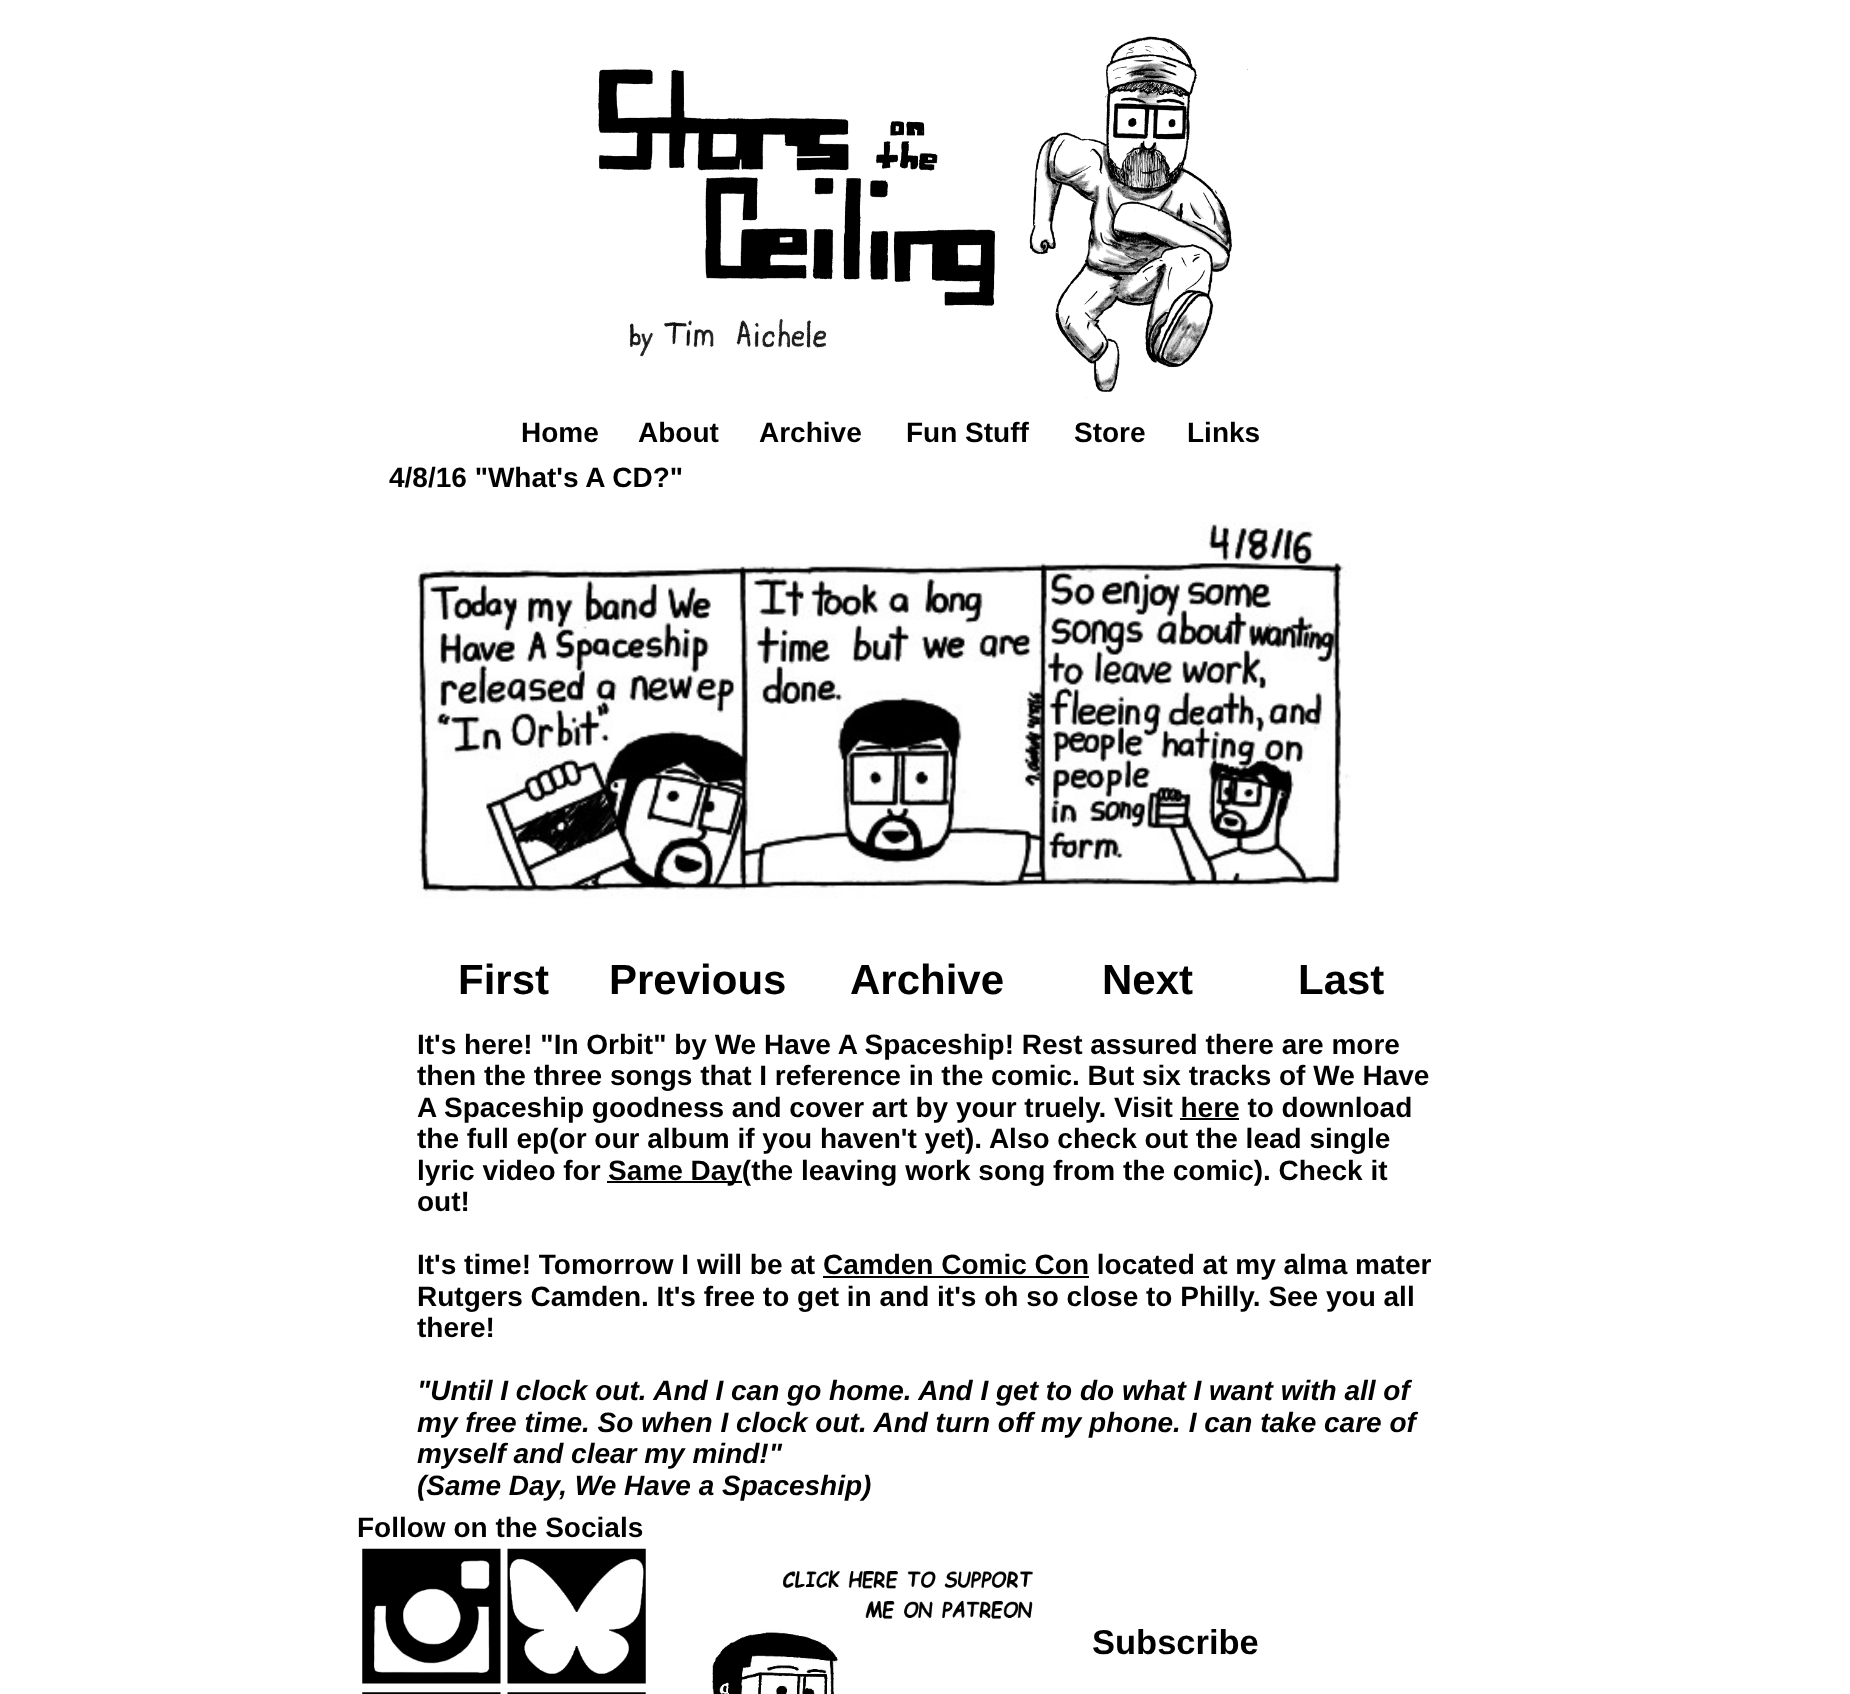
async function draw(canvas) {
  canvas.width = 1850;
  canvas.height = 1694;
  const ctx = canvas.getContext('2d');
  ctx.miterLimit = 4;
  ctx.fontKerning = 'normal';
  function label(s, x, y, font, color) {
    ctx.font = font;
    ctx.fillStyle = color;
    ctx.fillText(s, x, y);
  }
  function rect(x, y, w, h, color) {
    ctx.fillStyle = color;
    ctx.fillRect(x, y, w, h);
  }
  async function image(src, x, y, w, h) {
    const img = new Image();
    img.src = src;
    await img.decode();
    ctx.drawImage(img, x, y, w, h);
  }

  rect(0, 0, 1850, 1694, '#fff');
  await image('assets/img1.png', 598, 36, 650, 362);
  label('Home', 521, 442, 'bold 28px Liberation Sans', '#000');
  label('About', 638, 442, 'bold 28px Liberation Sans', '#000');
  label('Archive', 759, 442, 'bold 28px Liberation Sans', '#000');
  label('Fun Stuff', 906, 442, 'bold 28px Liberation Sans', '#000');
  label('Store', 1074, 442, 'bold 28px Liberation Sans', '#000');
  label('Links', 1187, 442, 'bold 28px Liberation Sans', '#000');
  label('4/8/16 "What\'s A CD?"', 389, 487, 'bold 28px Liberation Sans', '#000');
  await image('assets/img2.png', 417, 522, 934, 377);
  label('First', 458, 994, 'bold 42px Liberation Sans', '#000');
  label('Previous', 609, 994, 'bold 42px Liberation Sans', '#000');
  label('Archive', 850, 994, 'bold 42px Liberation Sans', '#000');
  label('Next', 1102, 994, 'bold 42px Liberation Sans', '#000');
  label('Last', 1298, 994, 'bold 42px Liberation Sans', '#000');
  label('It\'s here! "In Orbit" by We Have A Spaceship! Rest assured there are more', 417, 1054, 'bold 28px Liberation Sans', '#000');
  label('then the three songs that I reference in the comic. But six tracks of We Have', 417, 1085, 'bold 28px Liberation Sans', '#000');
  label('A Spaceship goodness and cover art by your truely. Visit here to download', 417, 1117, 'bold 28px Liberation Sans', '#000');
  rect(1180, 1118, 59, 2, '#000');
  label('the full ep(or our album if you haven\'t yet). Also check out the lead single', 417, 1148, 'bold 28px Liberation Sans', '#000');
  label('lyric video for', 417, 1180, 'bold 28px Liberation Sans', '#000');
  rect(607, 1181, 135, 2, '#000');
  label('Same Day(the leaving work song from the comic). Check it', 608, 1180, 'bold 28px Liberation Sans', '#000');
  label('out!', 417, 1211, 'bold 28px Liberation Sans', '#000');
  label('It\'s time! Tomorrow I will be at Camden Comic Con located at my alma mater', 417, 1274, 'bold 28px Liberation Sans', '#000');
  rect(823, 1276, 266, 2, '#000');
  label('Rutgers Camden. It\'s free to get in and it\'s oh so close to Philly. See you all', 417, 1306, 'bold 28px Liberation Sans', '#000');
  label('there!', 417, 1337, 'bold 28px Liberation Sans', '#000');
  label('"Until I clock out. And I can go home. And I get to do what I want with all of', 417, 1400, 'italic bold 28px Liberation Sans', '#000');
  label('my free time. So when I clock out. And turn off my phone. I can take care of', 417, 1432, 'italic bold 28px Liberation Sans', '#000');
  label('myself and clear my mind!"', 417, 1463, 'italic bold 28px Liberation Sans', '#000');
  label('(Same Day, We Have a Spaceship)', 417, 1495, 'italic bold 28px Liberation Sans', '#000');
  label('Follow on the Socials', 357, 1537, 'bold 28px Liberation Sans', '#000');
  await image('assets/img3.png', 362, 1548, 139, 136);
  await image('assets/img4.png', 507, 1548, 139, 136);
  await image('assets/img5.png', 362, 1692, 139, 2);
  await image('assets/img6.png', 507, 1692, 139, 2);
  await image('assets/img7.png', 711, 1570, 323, 124);
  label('Subscribe', 1092, 1654, 'bold 34.5px Liberation Sans', '#000');
}

draw(document.querySelector('canvas'));
